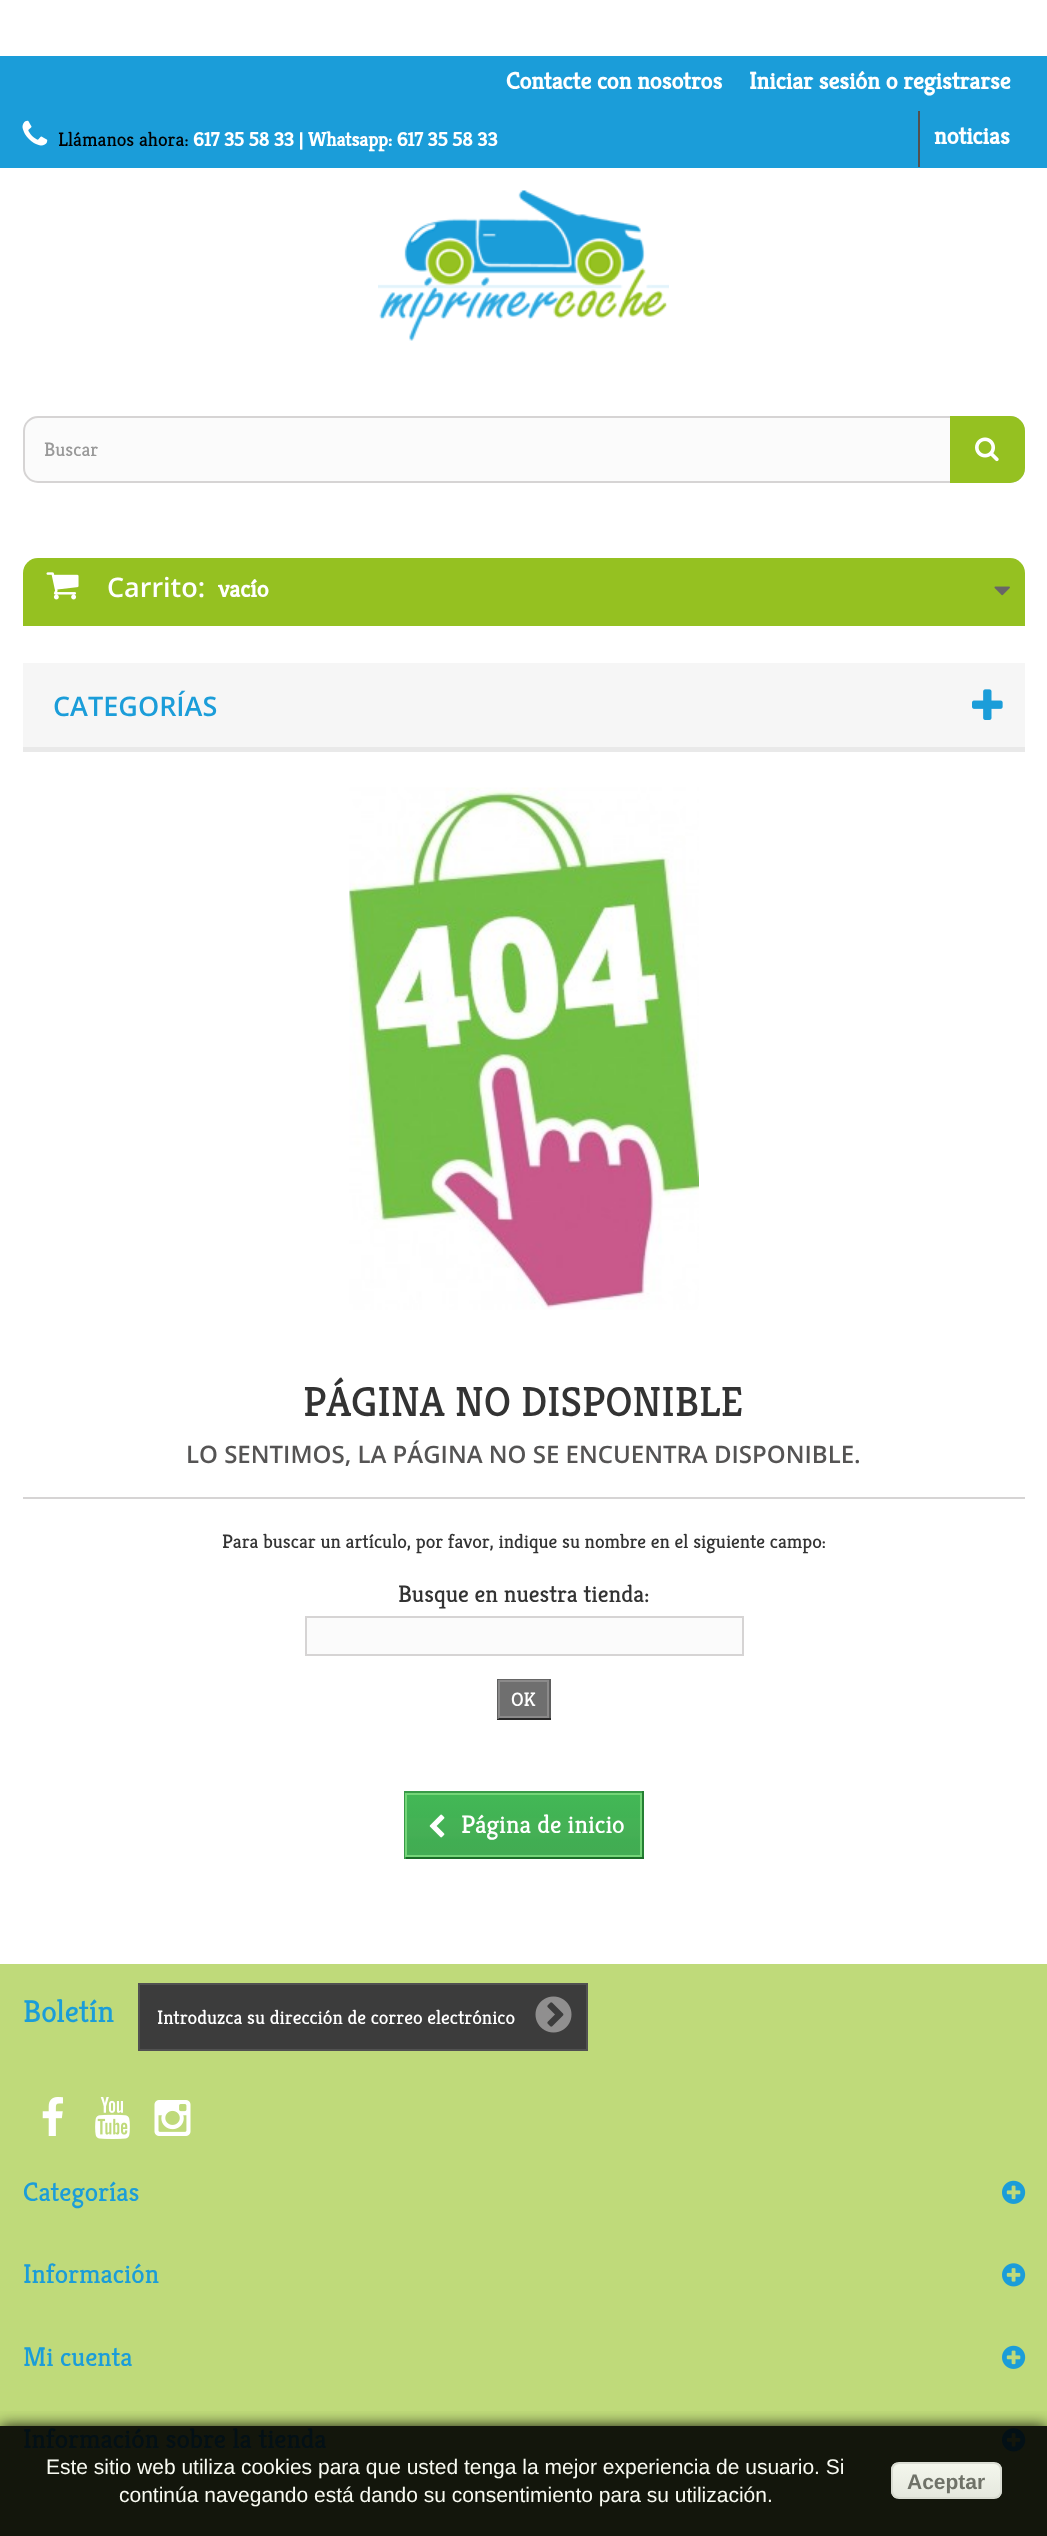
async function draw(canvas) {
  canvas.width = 1047;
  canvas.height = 2536;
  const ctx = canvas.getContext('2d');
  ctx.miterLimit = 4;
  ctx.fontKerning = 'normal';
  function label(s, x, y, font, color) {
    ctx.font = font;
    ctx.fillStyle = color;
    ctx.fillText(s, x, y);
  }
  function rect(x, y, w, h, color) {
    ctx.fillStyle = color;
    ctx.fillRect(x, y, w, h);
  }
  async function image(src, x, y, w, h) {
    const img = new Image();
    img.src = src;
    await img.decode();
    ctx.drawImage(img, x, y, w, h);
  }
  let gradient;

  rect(0, 0, 1047, 2536, '#fff');
  rect(0, 56, 1047, 112, '#1b9dd9');
  label('Contacte con nosotros', 506, 89, 'bold 24px Kreon', '#fff');
  label('Iniciar sesión o registrarse', 749, 89, 'bold 24px Kreon', '#fff');
  await image('assets/img1.png', 22, 120, 26, 26);
  label('Llámanos ahora:', 58, 146, '300 19.5px Kreon', '#000');
  label('617 35 58 33 | Whatsapp: 617 35 58 33', 193, 146, 'bold 19.5px Kreon', '#fff');
  rect(918, 111, 2, 56, '#515151');
  label('noticias', 934, 144, 'bold 24px Kreon', '#fff');
  await image('assets/img2.png', 378, 190, 291, 151);
  ctx.fillStyle = '#fbfbfb';
  ctx.beginPath();
  ctx.roundRect(24, 417, 1000, 65, 14);
  ctx.fill();
  ctx.strokeStyle = '#d6d4d4';
  ctx.lineWidth = 2;
  ctx.stroke();
  label('Buscar', 44, 456, '300 19.5px Kreon', '#999');
  ctx.fillStyle = '#95c121';
  ctx.beginPath();
  ctx.roundRect(950, 416, 75, 67, [0, 15, 15, 0]);
  ctx.fill();
  await image('assets/img3.png', 975, 437, 24, 25);
  ctx.beginPath();
  ctx.roundRect(23, 558, 1002, 68, [15, 15, 0, 0]);
  ctx.fill();
  await image('assets/img4.png', 46, 572, 33, 28);
  label('Carrito:', 107, 597, '600 27px Open Sans', '#fff');
  label('vacío', 218, 597, 'bold 24px Kreon', '#fff');
  await image('assets/img5.png', 994, 586, 16, 10);
  rect(23, 663, 1002, 84, '#f6f6f6');
  rect(23, 747, 1002, 5, '#e9e9e9');
  label('CATEGORÍAS', 53, 716, '600 27px Open Sans', '#1b9dd9');
  await image('assets/img6.png', 972, 689, 31, 31);
  await image('assets/img7.png', 349, 787, 350, 523);
  label('PÁGINA NO DISPONIBLE', 303, 1416, '300 42px Kreon', '#333');
  rect(23, 1497, 1002, 2, '#d6d4d4');
  label('LO SENTIMOS, LA PÁGINA NO SE ENCUENTRA DISPONIBLE.', 186, 1463, '600 24px Open Sans', '#555454');
  label('Para buscar un artículo, por favor, indique su nombre en el siguiente campo:', 222, 1548, '300 19.5px Kreon', '#333');
  label('Busque en nuestra tienda:', 398, 1602, '300 24px Kreon', '#333');
  ctx.fillStyle = '#fbfbfb';
  ctx.beginPath();
  ctx.rect(306, 1617, 437, 38);
  ctx.fill();
  ctx.stroke();
  rect(500, 1682, 47, 34, '#6f6f6f');
  rect(497, 1679, 54, 1, '#666');
  rect(549, 1679, 2, 40, '#5f5f5f');
  rect(497, 1718, 54, 2, '#292929');
  rect(497, 1679, 2, 40, '#5f5f5f');
  ctx.strokeStyle = '#8b8a8a';
  ctx.strokeRect(499, 1681, 49, 36);
  label('OK', 511, 1706, '300 19.5px Kreon', '#fff');
  gradient = ctx.createLinearGradient(524, 1793, 524, 1857);
  gradient.addColorStop(0, '#43b754');
  gradient.addColorStop(0.02, '#41b757');
  gradient.addColorStop(0.04, '#41b854');
  gradient.addColorStop(0.06, '#43b756');
  gradient.addColorStop(0.38, '#41b354');
  gradient.addColorStop(0.4, '#44b355');
  gradient.addColorStop(0.66, '#45af55');
  gradient.addColorStop(0.74, '#41ae53');
  gradient.addColorStop(0.91, '#42ac52');
  gradient.addColorStop(0.94, '#41ae55');
  gradient.addColorStop(0.96, '#43ab54');
  gradient.addColorStop(1, '#42ac52');
  ctx.fillStyle = gradient;
  ctx.fillRect(407, 1795, 233, 60);
  rect(404, 1791, 240, 2, '#399a49');
  rect(642, 1791, 2, 68, '#247f32');
  rect(404, 1857, 240, 2, '#1a6d27');
  rect(404, 1791, 2, 68, '#399a49');
  ctx.strokeStyle = '#74d578';
  ctx.strokeRect(406, 1794, 235, 62);
  await image('assets/img8.png', 429, 1814, 16, 24);
  label('Página de inicio', 461, 1833, '300 25.5px Kreon', '#fff');
  rect(0, 1964, 1047, 462, '#bfda7a');
  rect(0, 2426, 1047, 110, '#13160c');
  label('Boletín', 23, 2022, '300 31.5px Kreon', '#1b9dd9');
  ctx.fillStyle = '#3c3c3c';
  ctx.beginPath();
  ctx.rect(139, 1984, 448, 66);
  ctx.fill();
  ctx.strokeStyle = '#515151';
  ctx.stroke();
  label('Introduzca su dirección de correo electrónico', 157, 2024, '300 19.5px Kreon', '#fff');
  await image('assets/img9.png', 535, 1996, 37, 37);
  await image('assets/img10.png', 42, 2097, 21, 39);
  await image('assets/img11.png', 95, 2097, 35, 42);
  await image('assets/img12.png', 154, 2100, 37, 36);
  label('Categorías', 23, 2201, '300 27px Kreon', '#1b9dd9');
  await image('assets/img13.png', 1002, 2180, 24, 24);
  label('Información', 23, 2283, '300 27px Kreon', '#1b9dd9');
  await image('assets/img14.png', 1002, 2263, 24, 24);
  label('Mi cuenta', 23, 2366, '300 27px Kreon', '#1b9dd9');
  await image('assets/img13.png', 1002, 2345, 24, 24);
  label('Información sobre la tienda', 23, 2448, '300 27px Kreon', '#031016');
  await image('assets/img15.png', 1002, 2428, 24, 24);
  ctx.save();
  ctx.beginPath();
  ctx.rect(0, 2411, 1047, 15);
  ctx.clip();
  ctx.fillStyle = '#13160c';
  ctx.filter = 'blur(7.5px)';
  ctx.beginPath();
  ctx.rect(0, 2426, 1047, 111);
  ctx.fill();
  ctx.filter = 'none';
  ctx.restore();
  label('Este sitio web utiliza cookies para que usted tenga la mejor experiencia de usuario. Si', 46, 2474, '21px Liberation Sans', '#f9fbf2');
  label('continúa navegando está dando su consentimiento para su utilización.', 119, 2502, '21px Liberation Sans', '#f9fbf2');
  ctx.save();
  ctx.beginPath();
  ctx.roundRect(891, 2462, 111, 37, 8);
  ctx.clip();
  gradient = ctx.createLinearGradient(893, 2463, 893, 2498);
  gradient.addColorStop(0.05, '#f3f6ec');
  gradient.addColorStop(1, '#e5e8de');
  ctx.fillStyle = gradient;
  ctx.fillRect(891, 2463, 111, 35);
  ctx.restore();
  ctx.beginPath();
  ctx.roundRect(892, 2463, 109, 35, 7);
  ctx.strokeStyle = '#d9dcd2';
  ctx.stroke();
  label('Aceptar', 907, 2489, 'bold 21px Liberation Sans', '#6f7268');
}

draw(document.querySelector('canvas'));
